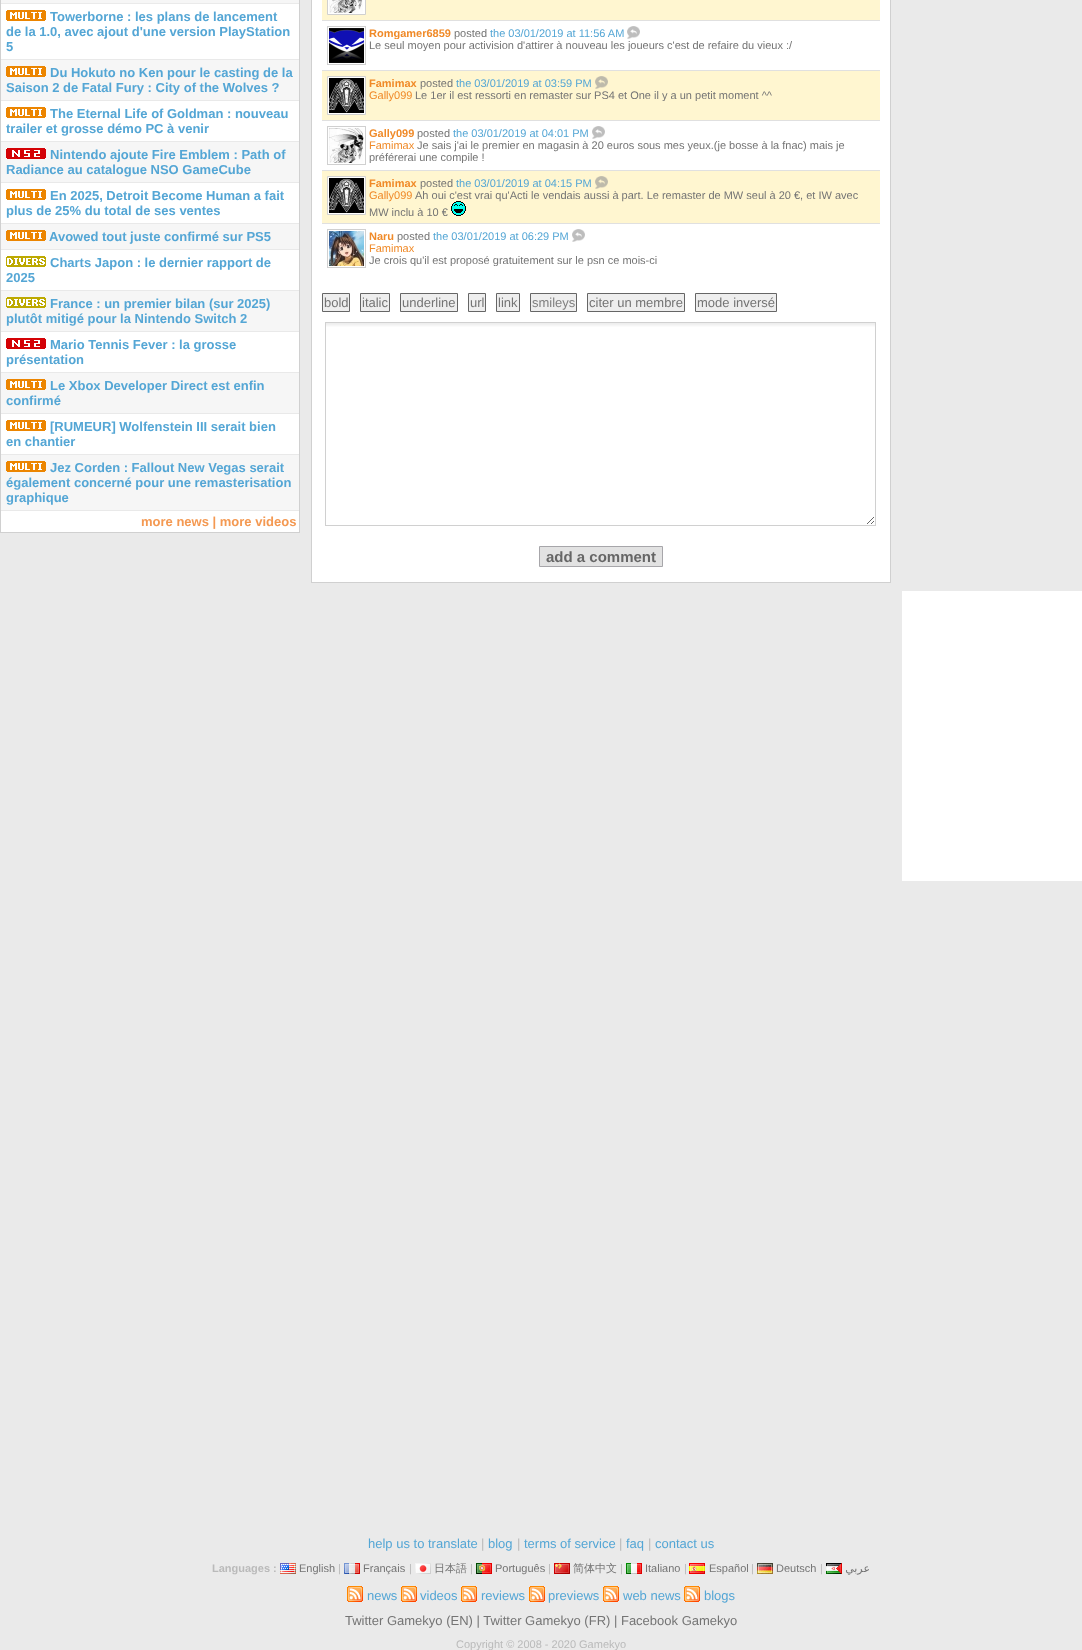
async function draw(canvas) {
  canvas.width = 1082;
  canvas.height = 1650;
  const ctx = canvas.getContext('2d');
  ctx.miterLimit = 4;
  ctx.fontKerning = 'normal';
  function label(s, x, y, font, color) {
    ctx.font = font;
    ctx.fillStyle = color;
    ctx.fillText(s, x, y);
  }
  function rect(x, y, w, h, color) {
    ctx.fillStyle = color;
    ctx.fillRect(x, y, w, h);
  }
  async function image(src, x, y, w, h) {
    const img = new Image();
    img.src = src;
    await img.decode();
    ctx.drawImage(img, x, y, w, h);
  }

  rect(0, 0, 1082, 1650, '#eaeaea');
  rect(1, 4, 298, 528, '#fff');
  ctx.strokeStyle = '#d0d0d0';
  ctx.strokeRect(0.5, -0.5, 299, 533);
  rect(1, 0, 298, 3, '#f6f6f6');
  rect(1, 59, 298, 1, '#e9e9e9');
  await image('assets/img1.png', 6, 10, 40, 11);
  label('Towerborne : les plans de lancement', 50, 21, 'bold 13px Liberation Sans', '#54a6d5');
  label('de la 1.0, avec ajout d\'une version PlayStation', 6, 36, 'bold 13px Liberation Sans', '#54a6d5');
  label('5', 6, 51, 'bold 13px Liberation Sans', '#54a6d5');
  rect(1, 60, 298, 40, '#f6f6f6');
  rect(1, 100, 298, 1, '#e9e9e9');
  await image('assets/img2.png', 6, 66, 40, 11);
  label('Du Hokuto no Ken pour le casting de la', 50, 77, 'bold 13px Liberation Sans', '#54a6d5');
  label('Saison 2 de Fatal Fury : City of the Wolves ?', 6, 92, 'bold 13px Liberation Sans', '#54a6d5');
  rect(1, 141, 298, 1, '#e9e9e9');
  await image('assets/img1.png', 6, 107, 40, 11);
  label('The Eternal Life of Goldman : nouveau', 50, 118, 'bold 13px Liberation Sans', '#54a6d5');
  label('trailer et grosse démo PC à venir', 6, 133, 'bold 13px Liberation Sans', '#54a6d5');
  rect(1, 142, 298, 40, '#f6f6f6');
  rect(1, 182, 298, 1, '#e9e9e9');
  await image('assets/img3.png', 6, 148, 40, 11);
  label('Nintendo ajoute Fire Emblem : Path of', 50, 159, 'bold 13px Liberation Sans', '#54a6d5');
  label('Radiance au catalogue NSO GameCube', 6, 174, 'bold 13px Liberation Sans', '#54a6d5');
  rect(1, 223, 298, 1, '#e9e9e9');
  await image('assets/img1.png', 6, 189, 40, 11);
  label('En 2025, Detroit Become Human a fait', 50, 200, 'bold 13px Liberation Sans', '#54a6d5');
  label('plus de 25% du total de ses ventes', 6, 215, 'bold 13px Liberation Sans', '#54a6d5');
  rect(1, 224, 298, 25, '#f6f6f6');
  rect(1, 249, 298, 1, '#e9e9e9');
  await image('assets/img2.png', 6, 230, 40, 11);
  label('Avowed tout juste confirmé sur PS5', 49, 241, 'bold 13px Liberation Sans', '#54a6d5');
  rect(1, 290, 298, 1, '#e9e9e9');
  await image('assets/img4.png', 6, 256, 40, 11);
  label('Charts Japon : le dernier rapport de', 50, 267, 'bold 13px Liberation Sans', '#54a6d5');
  label('2025', 6, 282, 'bold 13px Liberation Sans', '#54a6d5');
  rect(1, 291, 298, 40, '#f6f6f6');
  rect(1, 331, 298, 1, '#e9e9e9');
  await image('assets/img5.png', 6, 297, 40, 11);
  label('France : un premier bilan (sur 2025)', 50, 308, 'bold 13px Liberation Sans', '#54a6d5');
  label('plutôt mitigé pour la Nintendo Switch 2', 6, 323, 'bold 13px Liberation Sans', '#54a6d5');
  rect(1, 372, 298, 1, '#e9e9e9');
  await image('assets/img3.png', 6, 338, 40, 11);
  label('Mario Tennis Fever : la grosse', 50, 349, 'bold 13px Liberation Sans', '#54a6d5');
  label('présentation', 6, 364, 'bold 13px Liberation Sans', '#54a6d5');
  rect(1, 373, 298, 40, '#f6f6f6');
  rect(1, 413, 298, 1, '#e9e9e9');
  await image('assets/img2.png', 6, 379, 40, 11);
  label('Le Xbox Developer Direct est enfin', 50, 390, 'bold 13px Liberation Sans', '#54a6d5');
  label('confirmé', 6, 405, 'bold 13px Liberation Sans', '#54a6d5');
  rect(1, 454, 298, 1, '#e9e9e9');
  await image('assets/img1.png', 6, 420, 40, 11);
  label('[RUMEUR] Wolfenstein III serait bien', 50, 431, 'bold 13px Liberation Sans', '#54a6d5');
  label('en chantier', 6, 446, 'bold 13px Liberation Sans', '#54a6d5');
  rect(1, 455, 298, 55, '#f6f6f6');
  rect(1, 510, 298, 1, '#e9e9e9');
  await image('assets/img2.png', 6, 461, 40, 11);
  label('Jez Corden : Fallout New Vegas serait', 50, 472, 'bold 13px Liberation Sans', '#54a6d5');
  label('également concerné pour une remasterisation', 6, 487, 'bold 13px Liberation Sans', '#54a6d5');
  label('graphique', 6, 502, 'bold 13px Liberation Sans', '#54a6d5');
  label('more news | more videos', 141, 526, 'bold 13px Liberation Sans', '#f49952');
  ctx.strokeRect(311.5, -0.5, 579, 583);
  rect(312, 0, 578, 582, '#fff');
  rect(322, 0, 558, 20, '#fff6d0');
  ctx.fillStyle = '#fff';
  ctx.beginPath();
  ctx.rect(327.5, -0.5, 38, 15);
  ctx.fill();
  ctx.stroke();
  await image('assets/img6.png', 329, 0, 34, 13);
  rect(322, 20, 558, 1, '#e0e0e0');
  ctx.strokeRect(327.5, 26.5, 38, 38);
  await image('assets/img7.png', 329, 28, 35, 35);
  ctx.save();
  ctx.beginPath();
  ctx.rect(369, 26, 506, 13);
  ctx.clip();
  label('Romgamer6859', 369, 37, 'bold 11px Liberation Sans', '#f08a28');
  ctx.restore();
  label('posted', 454, 37, '11px Liberation Sans', '#747474');
  label('the 03/01/2019 at 11:56 AM', 490, 37, '11px Liberation Sans', '#54a6d5');
  await image('assets/img8.png', 627, 26, 13, 13);
  ctx.save();
  ctx.beginPath();
  ctx.rect(369, 39, 506, 12);
  ctx.clip();
  label('Le seul moyen pour activision d\'attirer à nouveau les joueurs c\'est de refaire du vieux :/', 369, 49, '11px Liberation Sans', '#747474');
  ctx.restore();
  rect(322, 71, 558, 49, '#fff6d0');
  rect(322, 70, 558, 1, '#e0e0e0');
  ctx.fillStyle = '#fff';
  ctx.beginPath();
  ctx.rect(327.5, 76.5, 38, 38);
  ctx.fill();
  ctx.stroke();
  await image('assets/img9.png', 329, 78, 35, 35);
  label('Famimax', 369, 87, 'bold 11px Liberation Sans', '#f08a28');
  label('posted', 420, 87, '11px Liberation Sans', '#747474');
  label('the 03/01/2019 at 03:59 PM', 456, 87, '11px Liberation Sans', '#54a6d5');
  await image('assets/img10.png', 595, 76, 13, 13);
  label('Gally099', 369, 99, '11px Liberation Sans', '#f08a28');
  ctx.save();
  ctx.beginPath();
  ctx.rect(369, 89, 506, 12);
  ctx.clip();
  label('Le 1er il est ressorti en remaster sur PS4 et One il y a un petit moment ^^', 415, 99, '11px Liberation Sans', '#747474');
  ctx.restore();
  rect(322, 120, 558, 1, '#e0e0e0');
  ctx.strokeRect(327.5, 126.5, 38, 38);
  await image('assets/img11.png', 329, 128, 35, 35);
  label('Gally099', 369, 137, 'bold 11px Liberation Sans', '#f08a28');
  label('posted', 417, 137, '11px Liberation Sans', '#747474');
  label('the 03/01/2019 at 04:01 PM', 453, 137, '11px Liberation Sans', '#54a6d5');
  await image('assets/img8.png', 592, 126, 13, 13);
  label('Famimax', 369, 149, '11px Liberation Sans', '#f08a28');
  label('Je sais j\'ai le premier en magasin à 20 euros sous mes yeux.(je bosse à la fnac) mais je', 417, 149, '11px Liberation Sans', '#747474');
  ctx.save();
  ctx.beginPath();
  ctx.rect(369, 139, 506, 24);
  ctx.clip();
  label('préférerai une compile !', 369, 161, '11px Liberation Sans', '#747474');
  ctx.restore();
  rect(322, 171, 558, 52, '#fff6d0');
  rect(322, 170, 558, 1, '#e0e0e0');
  ctx.fillStyle = '#fff';
  ctx.beginPath();
  ctx.rect(327.5, 176.5, 38, 38);
  ctx.fill();
  ctx.stroke();
  await image('assets/img9.png', 329, 178, 35, 35);
  label('Famimax', 369, 187, 'bold 11px Liberation Sans', '#f08a28');
  label('posted', 420, 187, '11px Liberation Sans', '#747474');
  label('the 03/01/2019 at 04:15 PM', 456, 187, '11px Liberation Sans', '#54a6d5');
  await image('assets/img10.png', 595, 176, 13, 13);
  label('Gally099', 369, 199, '11px Liberation Sans', '#f08a28');
  label('Ah oui c\'est vrai qu\'Acti le vendais aussi à part. Le remaster de MW seul à 20 €, et IW avec', 415, 199, '11px Liberation Sans', '#747474');
  label('MW inclu à 10 €', 369, 216, '11px Liberation Sans', '#747474');
  await image('assets/img12.png', 451, 201, 15, 15);
  rect(322, 223, 558, 1, '#e0e0e0');
  ctx.strokeRect(327.5, 229.5, 38, 38);
  await image('assets/img13.png', 329, 231, 35, 35);
  label('Naru', 369, 240, 'bold 11px Liberation Sans', '#f08a28');
  label('posted', 397, 240, '11px Liberation Sans', '#747474');
  label('the 03/01/2019 at 06:29 PM', 433, 240, '11px Liberation Sans', '#54a6d5');
  await image('assets/img8.png', 572, 229, 13, 13);
  label('Famimax', 369, 252, '11px Liberation Sans', '#f08a28');
  ctx.save();
  ctx.beginPath();
  ctx.rect(369, 242, 506, 24);
  ctx.clip();
  label('Je crois qu\'il est proposé gratuitement sur le psn ce mois-ci', 369, 264, '11px Liberation Sans', '#747474');
  ctx.restore();
  ctx.fillStyle = '#eee';
  ctx.beginPath();
  ctx.rect(322.5, 293.5, 27, 18);
  ctx.fill();
  ctx.strokeStyle = '#666';
  ctx.stroke();
  label('bold', 324, 307, '13px Liberation Sans', '#747474');
  ctx.fillStyle = '#eee';
  ctx.beginPath();
  ctx.rect(360.5, 293.5, 29, 18);
  ctx.fill();
  ctx.stroke();
  label('italic', 362, 307, '13px Liberation Sans', '#747474');
  ctx.fillStyle = '#eee';
  ctx.beginPath();
  ctx.rect(400.5, 293.5, 57, 18);
  ctx.fill();
  ctx.stroke();
  label('underline', 402, 307, '13px Liberation Sans', '#747474');
  ctx.fillStyle = '#eee';
  ctx.beginPath();
  ctx.rect(468.5, 293.5, 17, 18);
  ctx.fill();
  ctx.stroke();
  label('url', 470, 307, '13px Liberation Sans', '#747474');
  ctx.fillStyle = '#eee';
  ctx.beginPath();
  ctx.rect(496.5, 293.5, 23, 18);
  ctx.fill();
  ctx.stroke();
  label('link', 498, 307, '13px Liberation Sans', '#747474');
  ctx.fillStyle = '#eee';
  ctx.beginPath();
  ctx.rect(530.5, 293.5, 46, 18);
  ctx.fill();
  ctx.stroke();
  label('smileys', 532, 307, '13px Liberation Sans', '#808080');
  ctx.fillStyle = '#eee';
  ctx.beginPath();
  ctx.rect(587.5, 293.5, 97, 18);
  ctx.fill();
  ctx.stroke();
  label('citer un membre', 589, 307, '13px Liberation Sans', '#747474');
  ctx.fillStyle = '#eee';
  ctx.beginPath();
  ctx.rect(695.5, 293.5, 81, 18);
  ctx.fill();
  ctx.stroke();
  label('mode inversé', 697, 307, '13px Liberation Sans', '#747474');
  await image('assets/img14.png', 326, 323, 549, 201);
  ctx.strokeStyle = '#d0d0d0';
  ctx.strokeRect(325.5, 322.5, 550, 203);
  ctx.fillStyle = '#e2e2e2';
  ctx.beginPath();
  ctx.rect(539.5, 546.5, 123, 20);
  ctx.fill();
  ctx.strokeStyle = '#a7a6aa';
  ctx.stroke();
  label('add a comment', 546, 562, 'bold 15px Liberation Sans', '#666');
  rect(902, 591, 180, 290, '#fff');
  label('help us to translate', 368, 1548, '13px Liberation Sans', '#54a6d5');
  label('|', 481, 1548, '13px Liberation Sans', '#bababa');
  label('blog', 488, 1548, '13px Liberation Sans', '#54a6d5');
  label('|', 517, 1548, '13px Liberation Sans', '#bababa');
  label('terms of service', 524, 1548, '13px Liberation Sans', '#54a6d5');
  label('|', 619, 1548, '13px Liberation Sans', '#bababa');
  label('faq', 626, 1548, '13px Liberation Sans', '#54a6d5');
  label('|', 648, 1548, '13px Liberation Sans', '#bababa');
  label('contact us', 655, 1548, '13px Liberation Sans', '#54a6d5');
  label('Languages :', 212, 1572, 'bold 11px Liberation Sans', '#bababa');
  await image('assets/img15.png', 280, 1563, 16, 11);
  label('English', 299, 1572, '11px Liberation Sans', '#747474');
  label('|', 338, 1572, '11px Liberation Sans', '#bababa');
  await image('assets/img16.png', 344, 1563, 16, 11);
  label('Français', 363, 1572, '11px Liberation Sans', '#747474');
  label('|', 409, 1572, '11px Liberation Sans', '#bababa');
  await image('assets/img17.png', 415, 1563, 16, 11);
  label('日本語', 434, 1572, '500 11px WenQuanYi Zen Hei', '#747474');
  label('|', 470, 1572, '11px Liberation Sans', '#bababa');
  await image('assets/img18.png', 476, 1563, 16, 11);
  label('Português', 495, 1572, '11px Liberation Sans', '#747474');
  label('|', 548, 1572, '11px Liberation Sans', '#bababa');
  await image('assets/img19.png', 554, 1563, 16, 11);
  label('简体中文', 573, 1572, '500 11px WenQuanYi Zen Hei', '#747474');
  label('|', 620, 1572, '11px Liberation Sans', '#bababa');
  await image('assets/img20.png', 626, 1563, 16, 11);
  label('Italiano', 645, 1572, '11px Liberation Sans', '#747474');
  label('|', 684, 1572, '11px Liberation Sans', '#bababa');
  await image('assets/img21.png', 689, 1563, 16, 11);
  label('Español', 709, 1572, '11px Liberation Sans', '#747474');
  label('|', 751, 1572, '11px Liberation Sans', '#bababa');
  await image('assets/img22.png', 757, 1563, 16, 11);
  label('Deutsch', 776, 1572, '11px Liberation Sans', '#747474');
  label('|', 820, 1572, '11px Liberation Sans', '#bababa');
  await image('assets/img23.png', 826, 1563, 16, 11);
  ctx.direction = 'rtl';
  label('عربي', 870, 1572, '11px DejaVu Sans', '#747474');
  await image('assets/img24.png', 347, 1586, 16, 16);
  ctx.direction = 'ltr';
  label('news', 367, 1600, '13px Liberation Sans', '#54a6d5');
  await image('assets/img24.png', 401, 1586, 16, 16);
  label('videos', 420, 1600, '13px Liberation Sans', '#54a6d5');
  await image('assets/img24.png', 461, 1586, 16, 16);
  label('reviews', 481, 1600, '13px Liberation Sans', '#54a6d5');
  await image('assets/img24.png', 529, 1586, 16, 16);
  label('previews', 548, 1600, '13px Liberation Sans', '#54a6d5');
  await image('assets/img24.png', 603, 1586, 16, 16);
  label('web news', 623, 1600, '13px Liberation Sans', '#54a6d5');
  await image('assets/img24.png', 684, 1586, 16, 16);
  label('blogs', 704, 1600, '13px Liberation Sans', '#54a6d5');
  label('Twitter Gamekyo (EN) | Twitter Gamekyo (FR) | Facebook Gamekyo', 345, 1625, '13px Liberation Sans', '#747474');
  label('Copyright © 2008 - 2020 Gamekyo', 456, 1648, '11px Liberation Sans', '#bababa');
}

draw(document.querySelector('canvas'));
